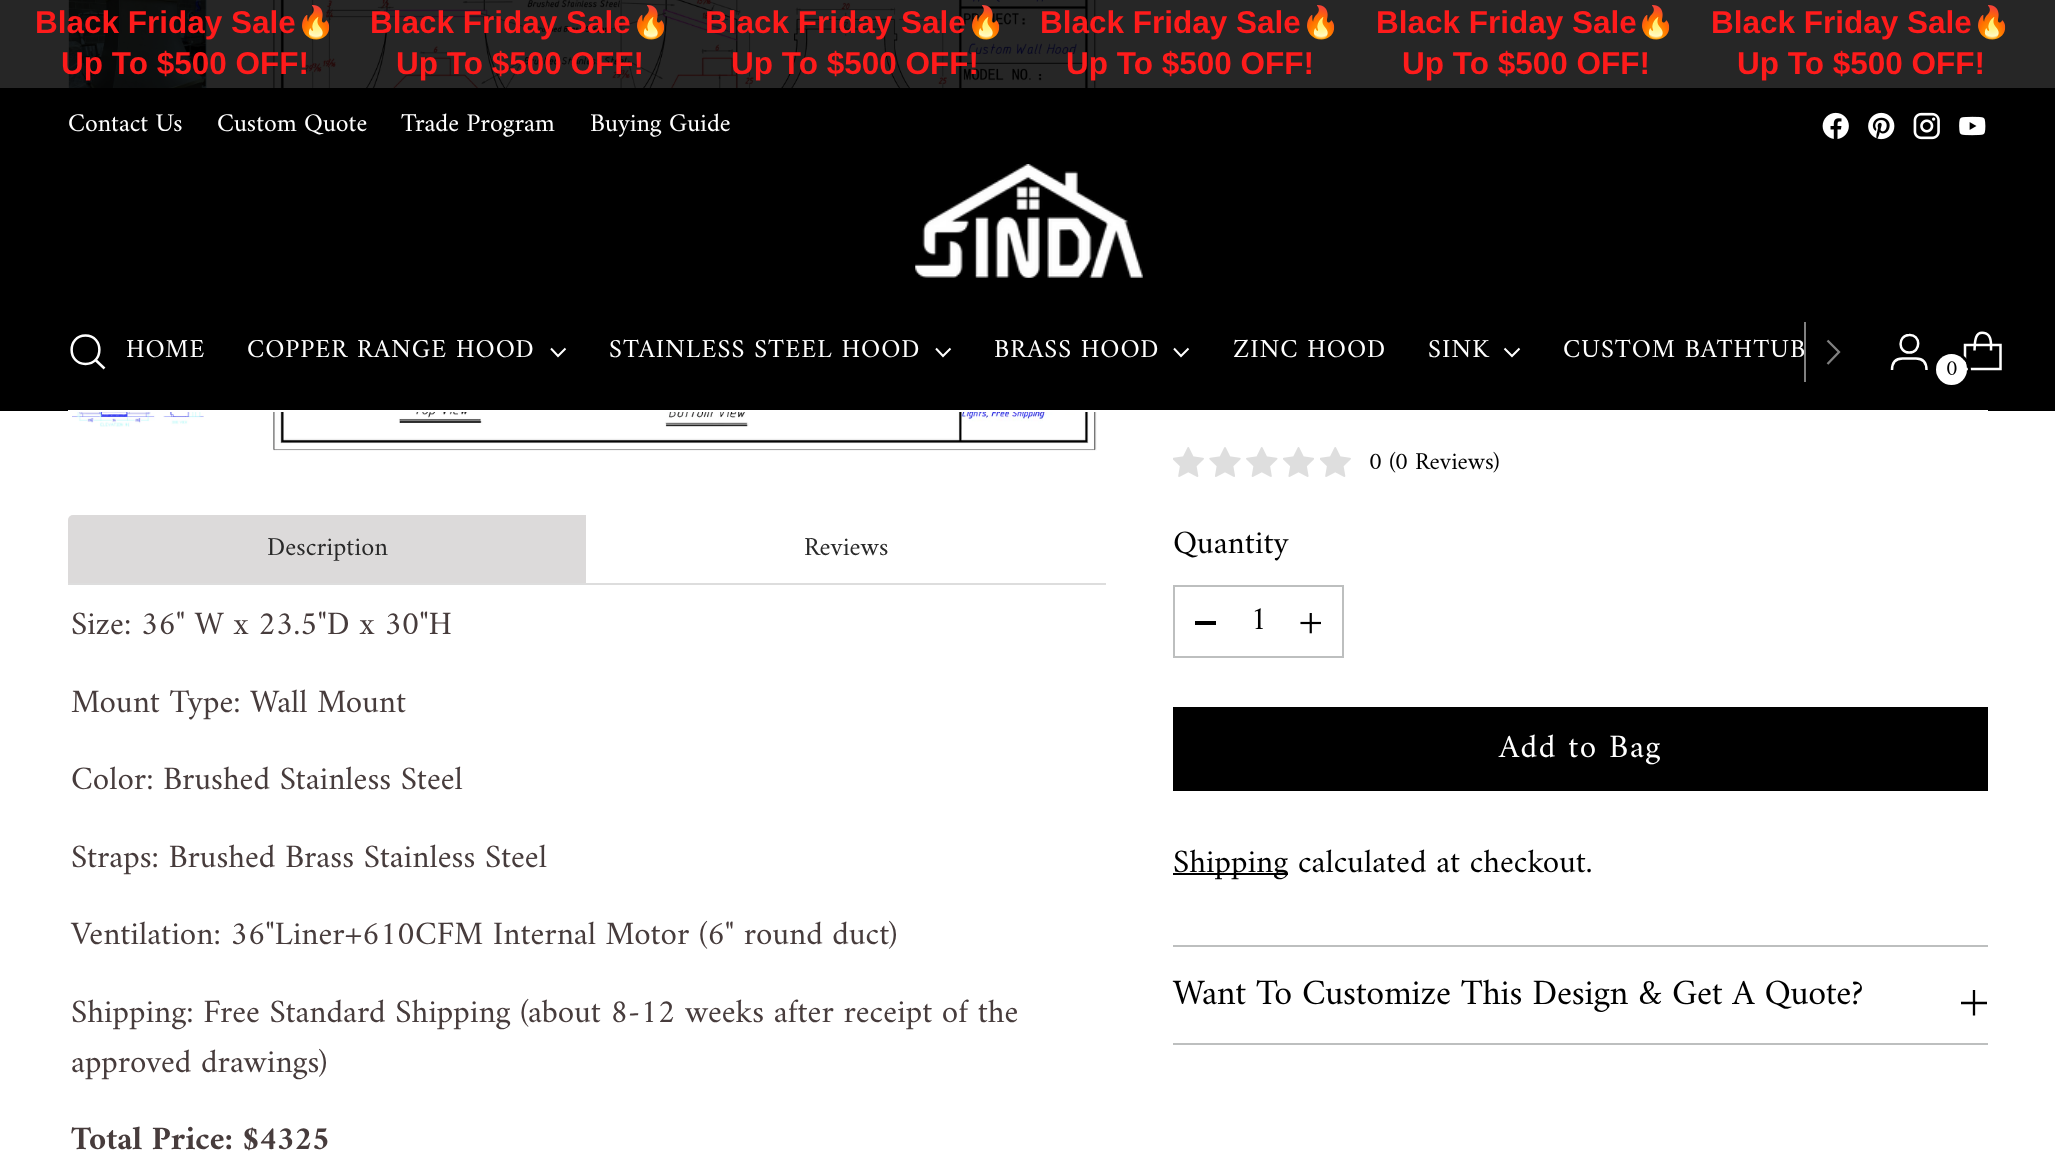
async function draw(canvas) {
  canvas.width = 2055;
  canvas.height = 1154;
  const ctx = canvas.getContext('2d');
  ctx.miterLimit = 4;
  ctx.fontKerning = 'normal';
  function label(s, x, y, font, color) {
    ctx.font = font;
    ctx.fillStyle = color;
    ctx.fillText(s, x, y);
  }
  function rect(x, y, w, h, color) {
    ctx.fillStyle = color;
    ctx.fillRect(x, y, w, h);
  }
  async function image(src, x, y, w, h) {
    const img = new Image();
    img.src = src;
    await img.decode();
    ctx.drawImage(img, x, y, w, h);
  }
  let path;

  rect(0, 0, 2055, 1154, '#fff');
  await image('assets/img6.png', 68, 0, 139, 88);
  await image('assets/img8.png', 273, 0, 824, 451);
  rect(0, 0, 2055, 88, '#000000d9');
  label('Black Friday Sale', 35, 33, 'bold 31.5px Liberation Sans', '#fe1b1b');
  label('🔥', 296, 33, 'bold 31.5px Noto Color Emoji', '#fe1b1b');
  label('Up To $500 OFF!', 61, 74, 'bold 31.5px Liberation Sans', '#fe1b1b');
  label('Black Friday Sale', 370, 33, 'bold 31.5px Liberation Sans', '#fe1b1b');
  label('🔥', 631, 33, 'bold 31.5px Noto Color Emoji', '#fe1b1b');
  label('Up To $500 OFF!', 396, 74, 'bold 31.5px Liberation Sans', '#fe1b1b');
  label('Black Friday Sale', 705, 33, 'bold 31.5px Liberation Sans', '#fe1b1b');
  label('🔥', 966, 33, 'bold 31.5px Noto Color Emoji', '#fe1b1b');
  label('Up To $500 OFF!', 731, 74, 'bold 31.5px Liberation Sans', '#fe1b1b');
  label('Black Friday Sale', 1040, 33, 'bold 31.5px Liberation Sans', '#fe1b1b');
  label('🔥', 1301, 33, 'bold 31.5px Noto Color Emoji', '#fe1b1b');
  label('Up To $500 OFF!', 1066, 74, 'bold 31.5px Liberation Sans', '#fe1b1b');
  label('Black Friday Sale', 1376, 33, 'bold 31.5px Liberation Sans', '#fe1b1b');
  label('🔥', 1636, 33, 'bold 31.5px Noto Color Emoji', '#fe1b1b');
  label('Up To $500 OFF!', 1402, 74, 'bold 31.5px Liberation Sans', '#fe1b1b');
  label('Black Friday Sale', 1711, 33, 'bold 31.5px Liberation Sans', '#fe1b1b');
  label('🔥', 1972, 33, 'bold 31.5px Noto Color Emoji', '#fe1b1b');
  label('Up To $500 OFF!', 1737, 74, 'bold 31.5px Liberation Sans', '#fe1b1b');
  rect(0, 88, 2055, 323, '#000');
  rect(68, 410, 1920, 2, '#fff');
  label('Contact Us', 68, 131, '25.75px Amiri', '#fff');
  label('Custom Quote', 217, 131, '25.75px Amiri', '#fff');
  label('Trade Program', 401, 131, '25.75px Amiri', '#fff');
  label('Buying Guide', 590, 131, '25.75px Amiri', '#fff');
  await image('assets/img1.png', 1822, 112, 27, 27);
  await image('assets/img2.png', 1868, 112, 27, 28);
  await image('assets/img3.png', 1913, 112, 27, 28);
  await image('assets/img4.png', 1959, 116, 27, 20);
  await image('assets/img5.png', 915, 164, 228, 114);
  path = new Path2D('M85.5 364C104 364 104 335.5 85.5 335.5C67 335.5 67 364 85.5 364Z');
  ctx.strokeStyle = '#fff';
  ctx.lineWidth = 2.5;
  ctx.lineCap = 'round';
  ctx.stroke(path);
  path = new Path2D('M95.5 360L104.5 368.5');
  ctx.lineCap = 'butt';
  ctx.stroke(path);
  ctx.letterSpacing = '1.05px';
  label('HOME', 126, 357, '26.25px Amiri', '#fff');
  label('COPPER RANGE HOOD', 247, 357, '26.25px Amiri', '#fff');
  path = new Path2D('M551 348.5L558 356L565.5 348.5');
  ctx.lineWidth = 2;
  ctx.stroke(path);
  label('STAINLESS STEEL HOOD', 609, 357, '26.25px Amiri', '#fff');
  path = new Path2D('M936 348.5L943 356L950.5 348.5');
  ctx.stroke(path);
  label('BRASS HOOD', 994, 357, '26.25px Amiri', '#fff');
  path = new Path2D('M1174 348.5L1181 356L1188.5 348.5');
  ctx.stroke(path);
  label('ZINC HOOD', 1233, 357, '26.25px Amiri', '#fff');
  label('SINK', 1428, 357, '26.25px Amiri', '#fff');
  path = new Path2D('M1504.5 348.5L1512 356L1519.5 348.5');
  ctx.stroke(path);
  label('CUSTOM BATHTUB', 1563, 357, '26.25px Amiri', '#fff');
  rect(1804, 322, 2, 60, '#808080');
  path = new Path2D('M1827.5 364L1839 352L1827.5 340.5');
  ctx.strokeStyle = '#808080';
  ctx.lineWidth = 2.3;
  ctx.stroke(path);
  path = new Path2D('M1909 352.5C1921.5 353 1921 334 1909 335C1897.5 335.5 1898 352.5 1909 352.5ZM1892 370C1892 363.5 1895 358.5 1902.5 358.5H1916C1923.5 358.5 1926.5 363.5 1926.5 370');
  ctx.strokeStyle = '#fff';
  ctx.lineWidth = 2.5;
  ctx.stroke(path);
  path = new Path2D('M1991 350.5C1991 346.5 1991.5 342 1990 338C1989 335.5 1987 333.5 1984.5 333C1974 330.5 1975 344 1974.5 350.5');
  ctx.lineJoin = 'bevel';
  ctx.stroke(path);
  path = new Path2D('M2000.5 369V345H1965V369Z');
  ctx.lineJoin = 'miter';
  ctx.stroke(path);
  ctx.beginPath();
  ctx.arc(1952.5, 370.5, 17, 0, 2 * Math.PI);
  ctx.strokeStyle = '#000';
  ctx.lineWidth = 3;
  ctx.stroke();
  ctx.fillStyle = '#fff';
  ctx.beginPath();
  ctx.arc(1951.5, 369.5, 15.5, 0, 2 * Math.PI);
  ctx.fill();
  ctx.letterSpacing = '0px';
  label('0', 1946, 375, '22px Amiri', '#000');
  await image('assets/img7.png', 72, 412, 132, 15);
  ctx.fillStyle = '#dcdada';
  ctx.beginPath();
  ctx.roundRect(68, 515, 518, 68, [5, 0, 0, 0]);
  ctx.fill();
  rect(68, 583, 1038, 2, '#ddd');
  label('Description', 267, 555, '26.25px Amiri', '#292929');
  label('Reviews', 804, 555, '26.25px Amiri', '#292929');
  label('Size: 36" W x 23.5"D x 30"H', 71, 634, '33.05px Amiri', '#473c3c');
  label('Mount Type: Wall Mount', 71, 712, '33.05px Amiri', '#473c3c');
  label('Color: Brushed Stainless Steel', 71, 789, '33.05px Amiri', '#473c3c');
  label('Straps: Brushed Brass Stainless Steel', 71, 867, '33.05px Amiri', '#473c3c');
  label('Ventilation: 36"Liner+610CFM Internal Motor (6" round duct)', 71, 944, '33.05px Amiri', '#473c3c');
  label('Shipping: Free Standard Shipping (about 8-12 weeks after receipt of the', 71, 1022, '33.05px Amiri', '#473c3c');
  label('approved drawings)', 71, 1072, '33.05px Amiri', '#473c3c');
  label('Total Price: $4325', 71, 1149, 'bold 33.05px Amiri', '#473c3c');
  await image('assets/img9.png', 1173, 447, 31, 30);
  await image('assets/img10.png', 1209, 447, 32, 30);
  await image('assets/img11.png', 1246, 447, 32, 30);
  await image('assets/img12.png', 1283, 447, 31, 30);
  await image('assets/img9.png', 1320, 447, 31, 30);
  label('0 (', 1369, 469, '24.5px Amiri', '#000');
  label('0', 1395, 469, '24.5px Amiri', '#000');
  label('Reviews)', 1415, 469, '24.5px Amiri', '#000');
  label('Quantity', 1173, 553, '33.05px Amiri', '#000');
  ctx.strokeStyle = '#bdbfbf';
  ctx.lineWidth = 2;
  ctx.strokeRect(1174, 586, 169, 71);
  rect(1195, 621, 21, 4, '#000');
  label('1', 1250, 629, '33.05px Amiri', '#000');
  await image('assets/img13.png', 1300, 613, 21, 21);
  ctx.save();
  ctx.beginPath();
  ctx.rect(1173, 707, 815, 84);
  ctx.clip();
  path = new Path2D('M1027 707H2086L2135 791H1075Z');
  ctx.fill(path);
  ctx.restore();
  ctx.letterSpacing = '1.6px';
  label('Add to Bag', 1499, 757, '33.05px Amiri', '#fff');
  rect(1173, 873, 115, 2, '#000');
  ctx.letterSpacing = '0px';
  label('Shipping calculated at checkout.', 1173, 872, '33.05px Amiri', '#000');
  rect(1173, 945, 815, 2, '#bdbfbf');
  rect(1173, 1043, 815, 2, '#bdbfbf');
  ctx.letterSpacing = '-0.35px';
  label('Want To Customize This Design & Get A Quote?', 1173, 1004, '36.1px Amiri', '#000');
  path = new Path2D('M1961 1003H1974M1987 1003H1974M1974 1003V990M1974 1003V1015.5');
  ctx.strokeStyle = '#000';
  ctx.lineWidth = 2.3;
  ctx.stroke(path);
}

draw(document.querySelector('canvas'));
